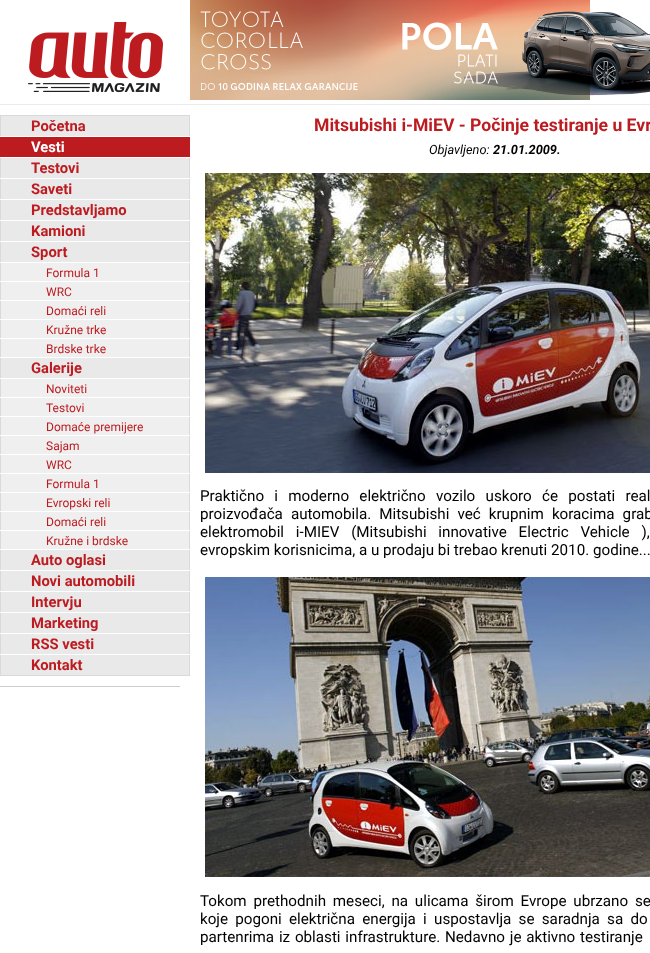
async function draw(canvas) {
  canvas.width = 650;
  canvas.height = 953;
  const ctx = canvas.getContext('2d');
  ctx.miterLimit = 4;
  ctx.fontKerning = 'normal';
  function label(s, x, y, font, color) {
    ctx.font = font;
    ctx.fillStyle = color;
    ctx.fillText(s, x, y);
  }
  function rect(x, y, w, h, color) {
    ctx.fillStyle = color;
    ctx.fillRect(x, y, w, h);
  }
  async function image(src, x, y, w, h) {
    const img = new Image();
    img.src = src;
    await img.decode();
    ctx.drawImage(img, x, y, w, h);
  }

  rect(0, 0, 650, 953, '#fff');
  rect(0, 104, 650, 1, '#ebebeb');
  await image('assets/img1.png', 28, 22, 135, 70);
  await image('assets/img2.png', 190, 0, 460, 100);
  rect(1, 116, 188, 559, '#e9e9e9');
  rect(0, 675, 190, 1, '#d9d9d9');
  rect(0, 115, 190, 1, '#d9d9d9');
  rect(189, 116, 1, 20, '#d9d9d9');
  rect(0, 116, 1, 20, '#d9d9d9');
  label('Početna', 31, 131, 'bold 14.75px Roboto', '#bc1b20');
  rect(0, 136, 190, 1, '#fff');
  rect(0, 137, 190, 20, '#bc1b20');
  label('Vesti', 31, 152, 'bold 14.75px Roboto', '#fff');
  rect(0, 157, 190, 1, '#fff');
  rect(189, 158, 1, 20, '#d9d9d9');
  rect(0, 158, 1, 20, '#d9d9d9');
  label('Testovi', 31, 173, 'bold 14.75px Roboto', '#bc1b20');
  rect(0, 178, 190, 1, '#fff');
  rect(189, 179, 1, 20, '#d9d9d9');
  rect(0, 179, 1, 20, '#d9d9d9');
  label('Saveti', 31, 194, 'bold 14.75px Roboto', '#bc1b20');
  rect(0, 199, 190, 1, '#fff');
  rect(189, 200, 1, 20, '#d9d9d9');
  rect(0, 200, 1, 20, '#d9d9d9');
  label('Predstavljamo', 31, 215, 'bold 14.75px Roboto', '#bc1b20');
  rect(0, 220, 190, 1, '#fff');
  rect(189, 221, 1, 20, '#d9d9d9');
  rect(0, 221, 1, 20, '#d9d9d9');
  label('Kamioni', 31, 236, 'bold 14.75px Roboto', '#bc1b20');
  rect(0, 241, 190, 1, '#fff');
  rect(189, 242, 1, 20, '#d9d9d9');
  rect(0, 242, 1, 20, '#d9d9d9');
  label('Sport', 31, 257, 'bold 14.75px Roboto', '#bc1b20');
  rect(0, 262, 190, 1, '#fff');
  rect(1, 263, 188, 18, '#efefef');
  rect(189, 263, 1, 18, '#d9d9d9');
  rect(0, 263, 1, 18, '#d9d9d9');
  label('Formula 1', 46, 277, '12px Roboto', '#bc1b20');
  rect(0, 281, 190, 1, '#fff');
  rect(1, 282, 188, 18, '#efefef');
  rect(189, 282, 1, 18, '#d9d9d9');
  rect(0, 282, 1, 18, '#d9d9d9');
  label('WRC', 46, 296, '12px Roboto', '#bc1b20');
  rect(0, 300, 190, 1, '#fff');
  rect(1, 301, 188, 18, '#efefef');
  rect(189, 301, 1, 18, '#d9d9d9');
  rect(0, 301, 1, 18, '#d9d9d9');
  label('Domaći reli', 46, 315, '12px Roboto', '#bc1b20');
  rect(0, 319, 190, 1, '#fff');
  rect(1, 320, 188, 18, '#efefef');
  rect(189, 320, 1, 18, '#d9d9d9');
  rect(0, 320, 1, 18, '#d9d9d9');
  label('Kružne trke', 46, 334, '12px Roboto', '#bc1b20');
  rect(0, 338, 190, 1, '#fff');
  rect(1, 339, 188, 18, '#efefef');
  rect(189, 339, 1, 18, '#d9d9d9');
  rect(0, 339, 1, 18, '#d9d9d9');
  label('Brdske trke', 46, 353, '12px Roboto', '#bc1b20');
  rect(0, 357, 190, 1, '#fff');
  rect(189, 358, 1, 20, '#d9d9d9');
  rect(0, 358, 1, 20, '#d9d9d9');
  label('Galerije', 31, 373, 'bold 14.75px Roboto', '#bc1b20');
  rect(0, 378, 190, 1, '#fff');
  rect(1, 379, 188, 18, '#efefef');
  rect(189, 379, 1, 18, '#d9d9d9');
  rect(0, 379, 1, 18, '#d9d9d9');
  label('Noviteti', 46, 393, '12px Roboto', '#bc1b20');
  rect(0, 397, 190, 1, '#fff');
  rect(1, 398, 188, 18, '#efefef');
  rect(189, 398, 1, 18, '#d9d9d9');
  rect(0, 398, 1, 18, '#d9d9d9');
  label('Testovi', 46, 412, '12px Roboto', '#bc1b20');
  rect(0, 416, 190, 1, '#fff');
  rect(1, 417, 188, 18, '#efefef');
  rect(189, 417, 1, 18, '#d9d9d9');
  rect(0, 417, 1, 18, '#d9d9d9');
  label('Domaće premijere', 46, 431, '12px Roboto', '#bc1b20');
  rect(0, 435, 190, 1, '#fff');
  rect(1, 436, 188, 18, '#efefef');
  rect(189, 436, 1, 18, '#d9d9d9');
  rect(0, 436, 1, 18, '#d9d9d9');
  label('Sajam', 46, 450, '12px Roboto', '#bc1b20');
  rect(0, 454, 190, 1, '#fff');
  rect(1, 455, 188, 18, '#efefef');
  rect(189, 455, 1, 18, '#d9d9d9');
  rect(0, 455, 1, 18, '#d9d9d9');
  label('WRC', 46, 469, '12px Roboto', '#bc1b20');
  rect(0, 473, 190, 1, '#fff');
  rect(1, 474, 188, 18, '#efefef');
  rect(189, 474, 1, 18, '#d9d9d9');
  rect(0, 474, 1, 18, '#d9d9d9');
  label('Formula 1', 46, 488, '12px Roboto', '#bc1b20');
  rect(0, 492, 190, 1, '#fff');
  rect(1, 493, 188, 18, '#efefef');
  rect(189, 493, 1, 18, '#d9d9d9');
  rect(0, 493, 1, 18, '#d9d9d9');
  label('Evropski reli', 46, 507, '12px Roboto', '#bc1b20');
  rect(0, 511, 190, 1, '#fff');
  rect(1, 512, 188, 18, '#efefef');
  rect(189, 512, 1, 18, '#d9d9d9');
  rect(0, 512, 1, 18, '#d9d9d9');
  label('Domaći reli', 46, 526, '12px Roboto', '#bc1b20');
  rect(0, 530, 190, 1, '#fff');
  rect(1, 531, 188, 18, '#efefef');
  rect(189, 531, 1, 18, '#d9d9d9');
  rect(0, 531, 1, 18, '#d9d9d9');
  label('Kružne i brdske', 46, 545, '12px Roboto', '#bc1b20');
  rect(0, 549, 190, 1, '#fff');
  rect(189, 550, 1, 20, '#d9d9d9');
  rect(0, 550, 1, 20, '#d9d9d9');
  label('Auto oglasi', 31, 565, 'bold 14.75px Roboto', '#bc1b20');
  rect(0, 570, 190, 1, '#fff');
  rect(189, 571, 1, 20, '#d9d9d9');
  rect(0, 571, 1, 20, '#d9d9d9');
  label('Novi automobili', 31, 586, 'bold 14.75px Roboto', '#bc1b20');
  rect(0, 591, 190, 1, '#fff');
  rect(189, 592, 1, 20, '#d9d9d9');
  rect(0, 592, 1, 20, '#d9d9d9');
  label('Intervju', 31, 607, 'bold 14.75px Roboto', '#bc1b20');
  rect(0, 612, 190, 1, '#fff');
  rect(189, 613, 1, 20, '#d9d9d9');
  rect(0, 613, 1, 20, '#d9d9d9');
  label('Marketing', 31, 628, 'bold 14.75px Roboto', '#bc1b20');
  rect(0, 633, 190, 1, '#fff');
  rect(189, 634, 1, 20, '#d9d9d9');
  rect(0, 634, 1, 20, '#d9d9d9');
  label('RSS vesti', 31, 649, 'bold 14.75px Roboto', '#bc1b20');
  rect(0, 654, 190, 1, '#fff');
  rect(189, 655, 1, 20, '#d9d9d9');
  rect(0, 655, 1, 20, '#d9d9d9');
  label('Kontakt', 31, 670, 'bold 14.75px Roboto', '#bc1b20');
  rect(0, 686, 180, 1, '#ccc');
  label('Mitsubishi i-MiEV - Počinje testiranje u Evr', 314, 131, 'bold 17.6px Roboto', '#bc1b20');
  label('Objavljeno:', 429, 154, 'italic 12.75px Roboto', '#000');
  label('21.01.2009.', 493, 154, 'italic bold 12.75px Roboto', '#000');
  await image('assets/img3.png', 205, 173, 445, 300);
  ctx.wordSpacing = '6.5px';
  label('Praktično i moderno električno vozilo uskoro će postati real', 200, 501, '15.2px Roboto', '#000');
  ctx.wordSpacing = '4.25px';
  label('proizvođača automobila. Mitsubishi već krupnim koracima grab', 200, 519, '15.2px Roboto', '#000');
  ctx.wordSpacing = '8px';
  label('elektromobil i-MIEV (Mitsubishi innovative Electric Vehicle ),', 200, 537, '15.2px Roboto', '#000');
  ctx.wordSpacing = '0px';
  label('evropskim korisnicima, a u prodaju bi trebao krenuti 2010. godine...', 200, 555, '15.2px Roboto', '#000');
  await image('assets/img4.png', 205, 577, 445, 300);
  ctx.wordSpacing = '3px';
  label('Tokom prethodnih meseci, na ulicama širom Evrope ubrzano se', 200, 906, '15.2px Roboto', '#000');
  ctx.wordSpacing = '3.5px';
  label('koje pogoni električna energija i uspostavlja se saradnja sa do', 200, 924, '15.2px Roboto', '#000');
  ctx.wordSpacing = '1px';
  label('partenrima iz oblasti infrastrukture. Nedavno je aktivno testiranje', 200, 942, '15.2px Roboto', '#000');
}

draw(document.querySelector('canvas'));
